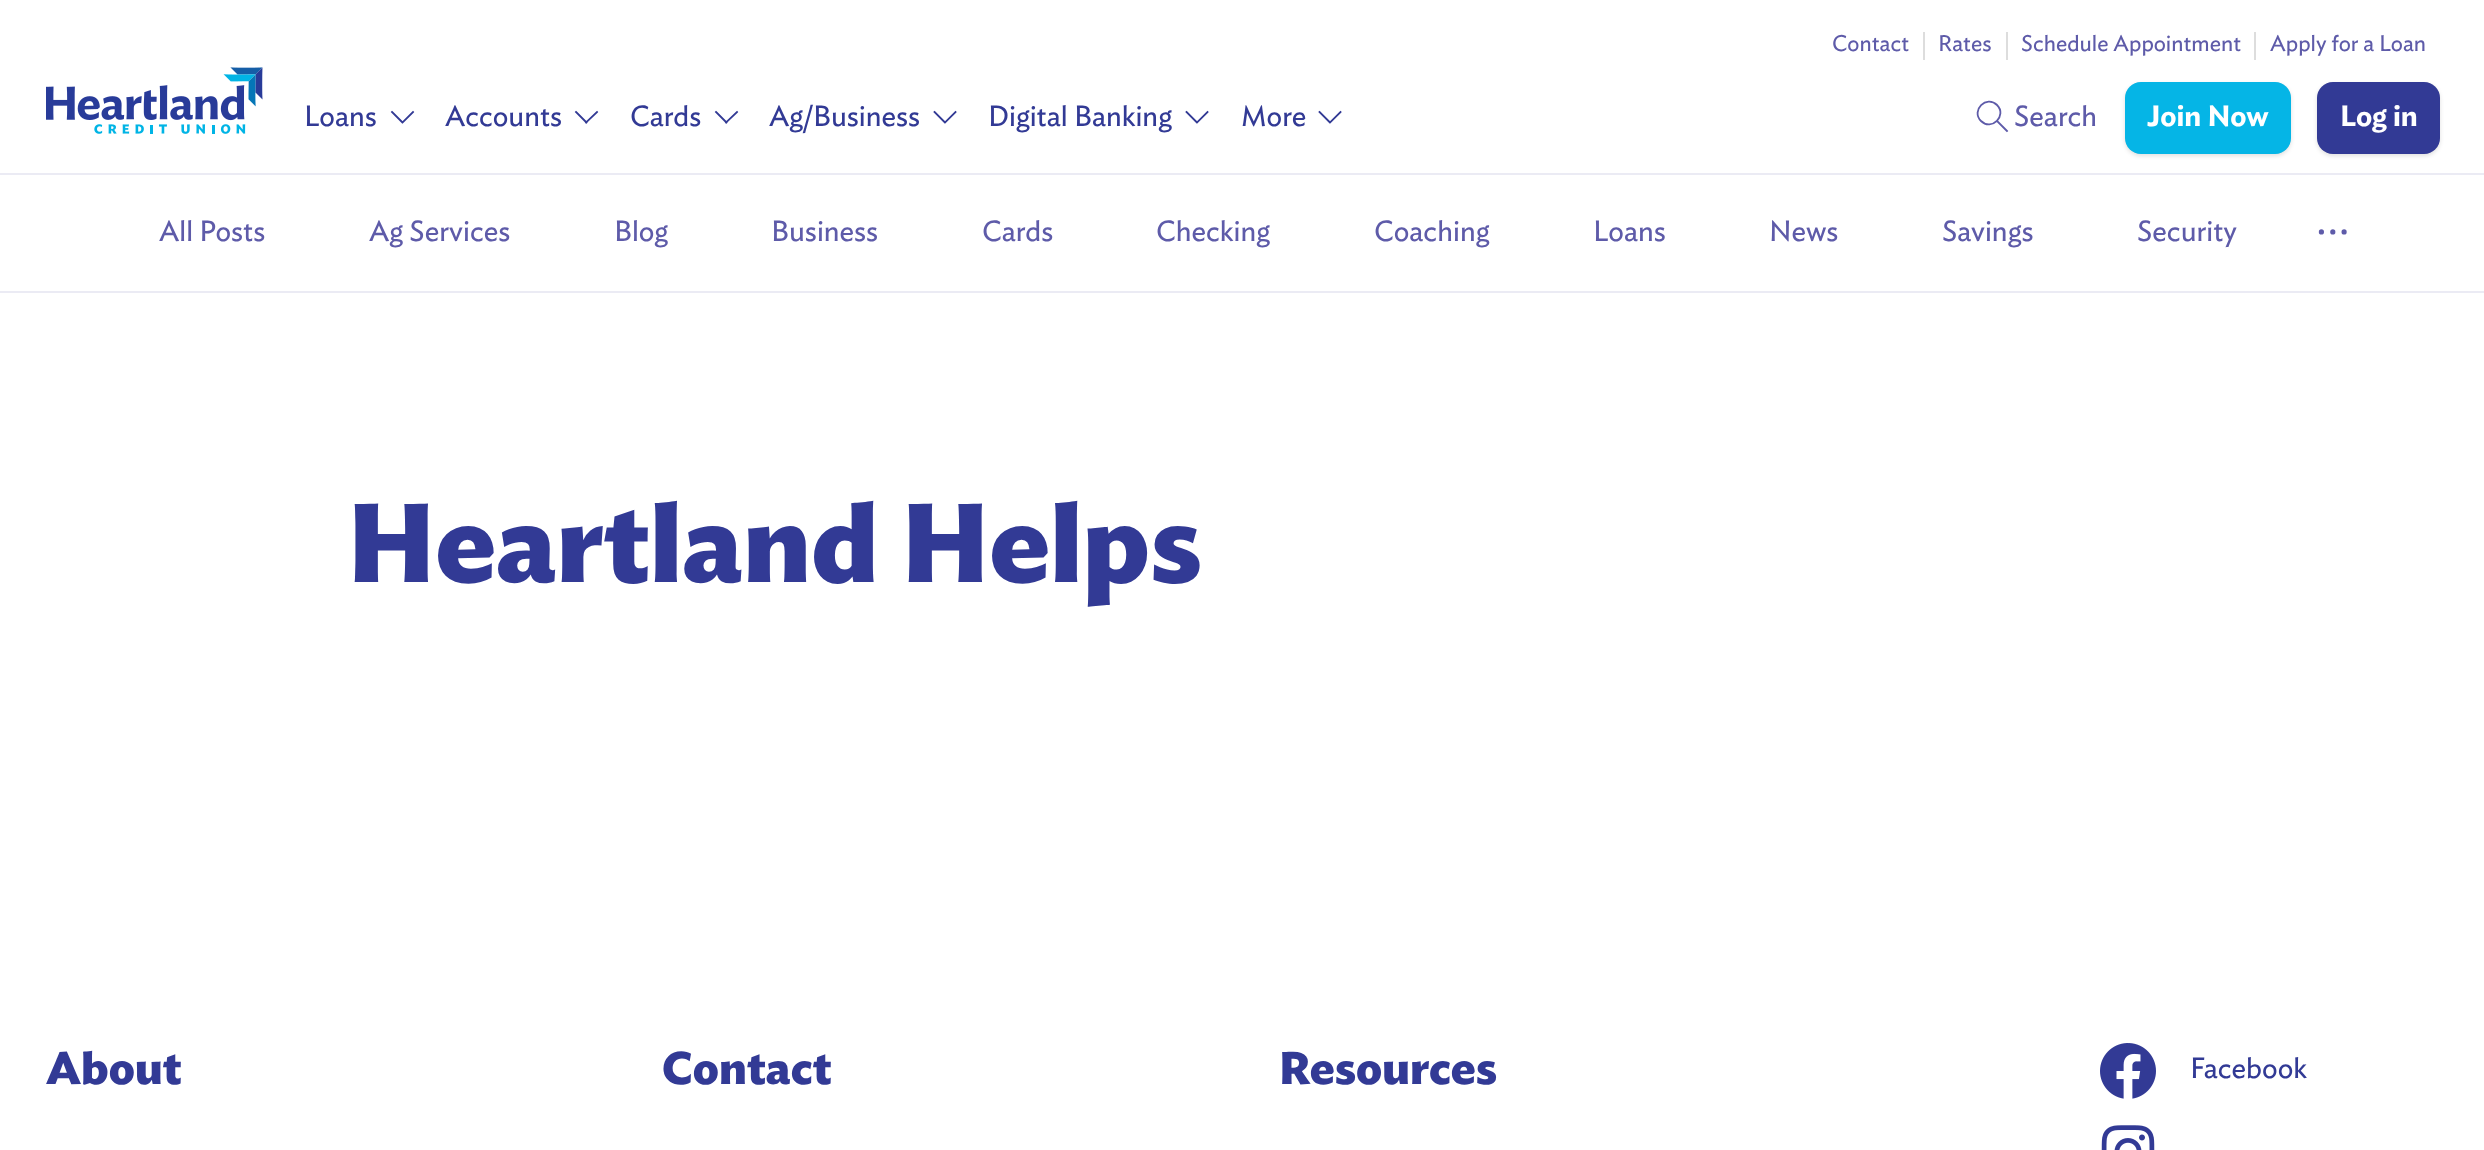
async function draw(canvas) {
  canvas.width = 2484;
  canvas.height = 1150;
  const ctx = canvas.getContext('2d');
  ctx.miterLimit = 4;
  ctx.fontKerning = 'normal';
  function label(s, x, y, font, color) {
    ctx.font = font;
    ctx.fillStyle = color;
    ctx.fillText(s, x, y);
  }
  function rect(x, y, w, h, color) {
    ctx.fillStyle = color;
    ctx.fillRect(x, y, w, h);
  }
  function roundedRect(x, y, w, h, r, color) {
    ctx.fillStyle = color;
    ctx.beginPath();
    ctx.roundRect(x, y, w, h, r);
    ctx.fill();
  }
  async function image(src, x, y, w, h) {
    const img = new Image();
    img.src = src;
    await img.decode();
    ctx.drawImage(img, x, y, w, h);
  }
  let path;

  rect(0, 0, 2484, 1150, '#fff');
  rect(0, 173, 2484, 2, '#ebebf4');
  await image('assets/img1.png', 46, 67, 217, 67);
  rect(1923, 32, 2, 28, '#ddd');
  label('Contact', 1832, 51, '22.5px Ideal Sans', '#5e5ba9');
  rect(2006, 32, 2, 28, '#ddd');
  label('Rates', 1938, 51, '22.5px Ideal Sans', '#5e5ba9');
  rect(2254, 32, 2, 28, '#ddd');
  label('Schedule Appointment', 2021, 51, '22.5px Ideal Sans', '#5e5ba9');
  label('Apply for a Loan', 2270, 51, '22.5px Ideal Sans', '#5e5ba9');
  label('Loans', 304, 126, '29px Ideal Sans', '#323a95');
  path = new Path2D('M392 112L402.5 122.5M413 112L402.5 122.5');
  ctx.strokeStyle = '#323a95';
  ctx.lineWidth = 1.8;
  ctx.lineCap = 'square';
  ctx.stroke(path);
  label('Accounts', 445, 126, '29px Ideal Sans', '#323a95');
  path = new Path2D('M576 112L586.5 122.5M597 112L586 122.5');
  ctx.stroke(path);
  label('Cards', 630, 126, '29px Ideal Sans', '#323a95');
  path = new Path2D('M716 112L726.5 122.5M737 112L726 122.5');
  ctx.stroke(path);
  label('Ag/Business', 769, 126, '29px Ideal Sans', '#323a95');
  path = new Path2D('M934.5 112L945 122.5M955.5 112L945 122.5');
  ctx.stroke(path);
  label('Digital Banking', 988, 126, '29px Ideal Sans', '#323a95');
  path = new Path2D('M1186.5 112L1197 122.5M1207.5 112L1197 122.5');
  ctx.stroke(path);
  label('More', 1241, 126, '29px Ideal Sans', '#323a95');
  path = new Path2D('M1319.5 112L1330 122.5M1340.5 112L1330 122.5');
  ctx.stroke(path);
  path = new Path2D('M1997 121L2007 131M1997 105C2007.5 115.5 1991.5 131.5 1981 121C1970.5 110.5 1986.5 94.5 1997 105');
  ctx.strokeStyle = '#5e5ba9';
  ctx.stroke(path);
  label('Search', 2014, 126, '29px Ideal Sans', '#5e5ba9');
  ctx.fillStyle = '#0000001f';
  ctx.filter = 'blur(2px)';
  ctx.beginPath();
  ctx.roundRect(2125, 84, 166, 72, 16);
  ctx.fill();
  ctx.filter = 'none';
  ctx.fillStyle = '#0000000f';
  ctx.filter = 'blur(0.5px)';
  ctx.beginPath();
  ctx.roundRect(2125, 82, 166, 72, 16);
  ctx.fill();
  ctx.filter = 'none';
  roundedRect(2125, 82, 166, 72, 16, '#05b5e6');
  label('Join Now', 2147, 126, '600 29px Ideal Sans', '#fff');
  ctx.fillStyle = '#0000001f';
  ctx.filter = 'blur(2px)';
  ctx.beginPath();
  ctx.roundRect(2317, 84, 123, 72, 16);
  ctx.fill();
  ctx.filter = 'none';
  ctx.fillStyle = '#0000000f';
  ctx.filter = 'blur(0.5px)';
  ctx.beginPath();
  ctx.roundRect(2317, 82, 123, 72, 16);
  ctx.fill();
  ctx.filter = 'none';
  roundedRect(2317, 82, 123, 72, 16, '#323a95');
  label('Log in', 2340, 126, '600 29px Ideal Sans', '#fff');
  rect(0, 291, 2484, 2, '#ebebf4');
  label('All Posts', 159, 241, '29px Ideal Sans', '#5e5ba9');
  label('Ag Services', 369, 241, '29px Ideal Sans', '#5e5ba9');
  label('Blog', 614, 241, '29px Ideal Sans', '#5e5ba9');
  label('Business', 771, 241, '29px Ideal Sans', '#5e5ba9');
  label('Cards', 982, 241, '29px Ideal Sans', '#5e5ba9');
  label('Checking', 1156, 241, '29px Ideal Sans', '#5e5ba9');
  label('Coaching', 1374, 241, '29px Ideal Sans', '#5e5ba9');
  label('Loans', 1593, 241, '29px Ideal Sans', '#5e5ba9');
  label('News', 1769, 241, '29px Ideal Sans', '#5e5ba9');
  label('Savings', 1942, 241, '29px Ideal Sans', '#5e5ba9');
  label('Security', 2137, 241, '29px Ideal Sans', '#5e5ba9');
  ctx.beginPath();
  ctx.arc(2332.8, 231.9, 2.6, 0, 2 * Math.PI);
  ctx.fill();
  ctx.beginPath();
  ctx.arc(2321.4, 231.9, 2.6, 0, 2 * Math.PI);
  ctx.fill();
  ctx.beginPath();
  ctx.arc(2344.1, 231.9, 2.6, 0, 2 * Math.PI);
  ctx.fill();
  label('Heartland Helps', 347, 582, 'bold 111px Ideal Sans', '#323a95');
  label('About', 46, 1084, 'bold 45.5px Ideal Sans', '#323a95');
  label('Contact', 662, 1084, 'bold 45.5px Ideal Sans', '#323a95');
  label('Resources', 1279, 1084, 'bold 45.5px Ideal Sans', '#323a95');
  await image('assets/img2.png', 2100, 1043, 56, 56);
  label('Facebook', 2190, 1078, '29px Ideal Sans', '#323a95');
  await image('assets/img3.png', 2101, 1125, 54, 25);
}

draw(document.querySelector('canvas'));
